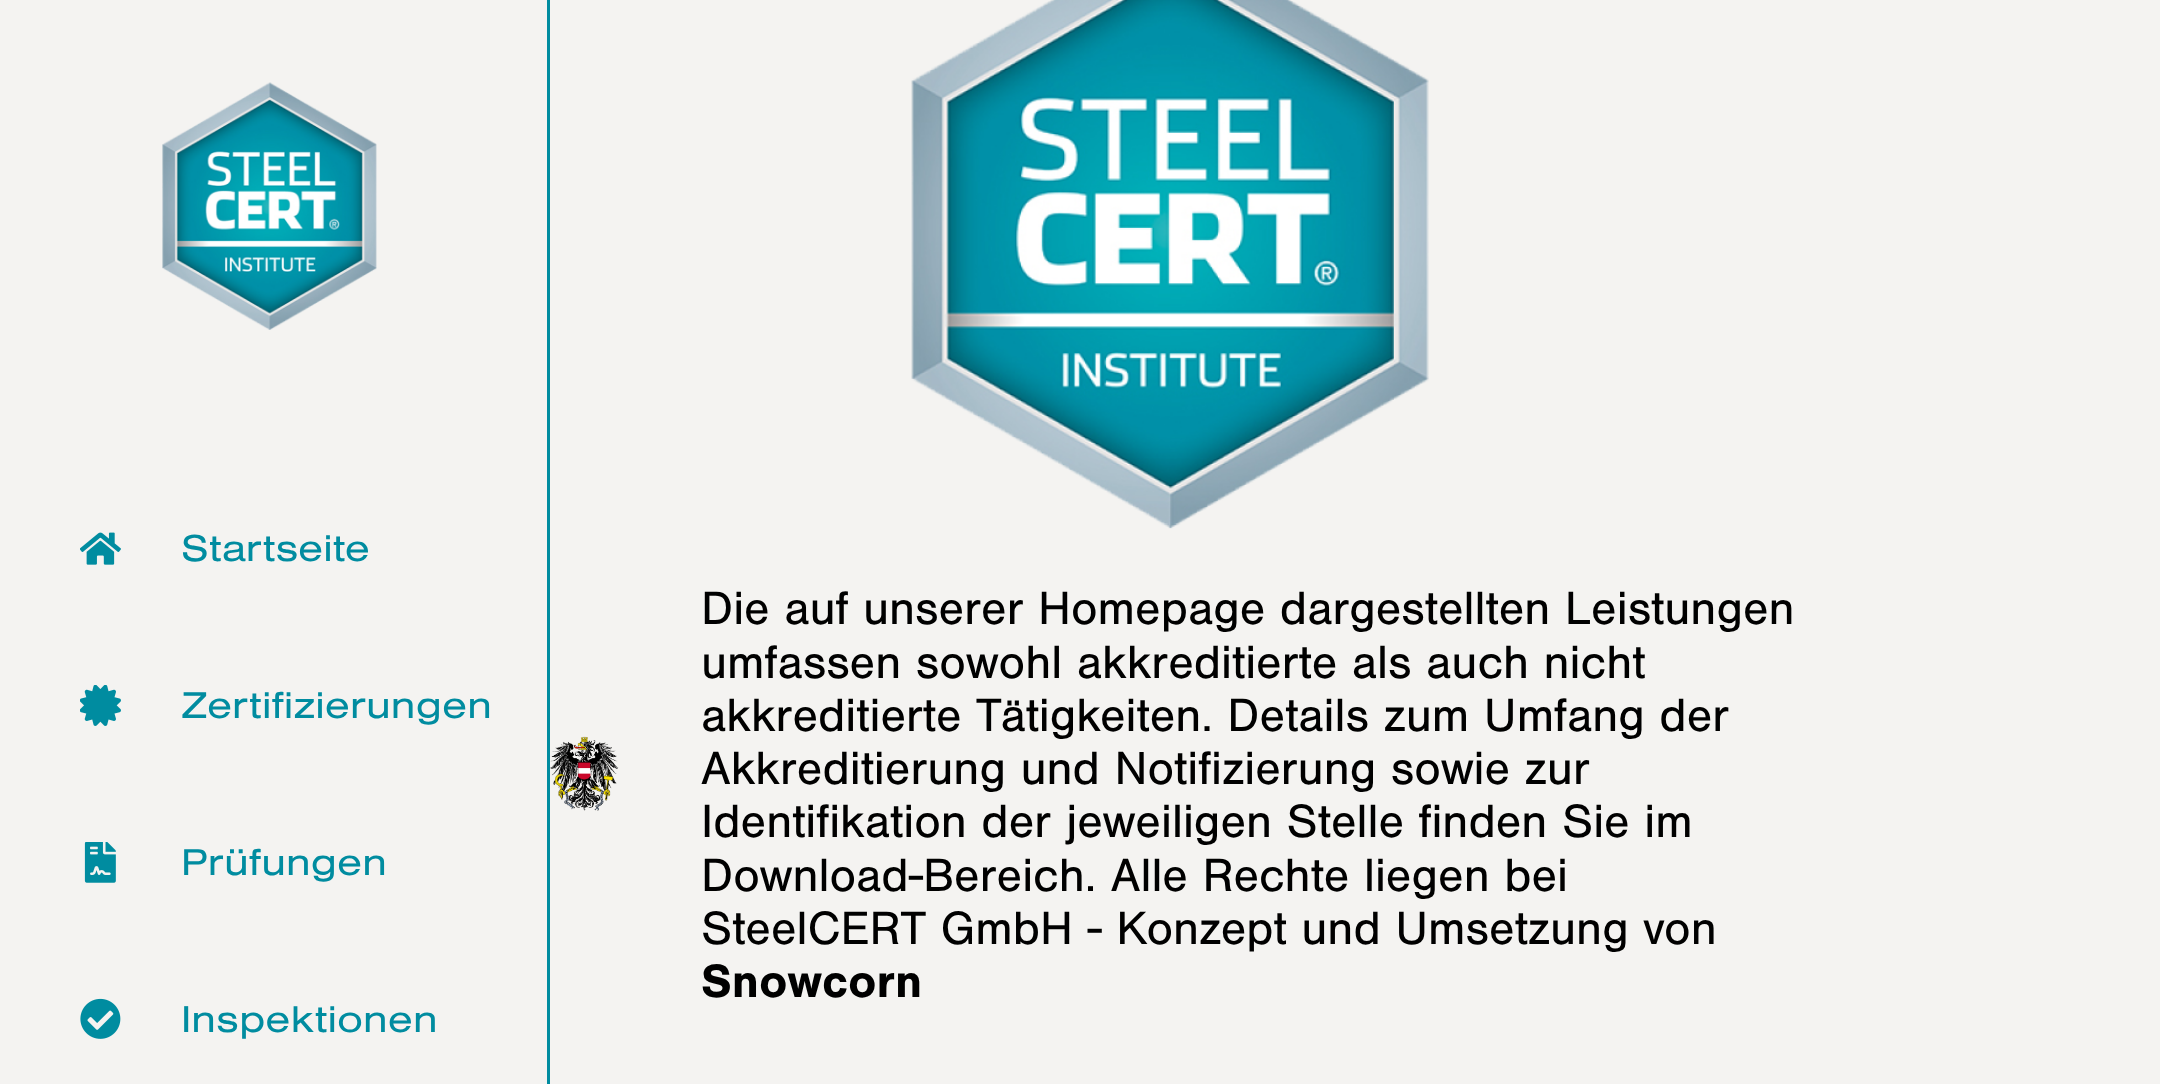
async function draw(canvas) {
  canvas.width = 2160;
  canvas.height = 1084;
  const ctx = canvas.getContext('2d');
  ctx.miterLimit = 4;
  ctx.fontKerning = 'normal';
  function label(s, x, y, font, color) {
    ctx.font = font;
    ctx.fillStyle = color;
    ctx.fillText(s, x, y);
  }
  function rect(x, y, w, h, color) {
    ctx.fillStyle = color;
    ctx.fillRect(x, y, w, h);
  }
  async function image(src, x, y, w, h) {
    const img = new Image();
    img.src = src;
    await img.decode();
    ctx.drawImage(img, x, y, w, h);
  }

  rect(0, 0, 2160, 1084, '#f4f3f1');
  rect(547, 0, 3, 1084, '#008ca0');
  await image('assets/img1.png', 162, 82, 215, 248);
  await image('assets/img2.png', 80, 532, 41, 33);
  label('Startseite', 181, 561, '38.75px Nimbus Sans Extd', '#008ca0');
  await image('assets/img3.png', 80, 685, 41, 41);
  label('Zertifizierungen', 181, 718, '38.75px Nimbus Sans Extd', '#008ca0');
  await image('assets/img4.png', 84, 842, 32, 41);
  label('Prüfungen', 181, 875, '38.75px Nimbus Sans Extd', '#008ca0');
  await image('assets/img5.png', 80, 998, 41, 41);
  label('Inspektionen', 181, 1032, '38.75px Nimbus Sans Extd', '#008ca0');
  await image('assets/img6.png', 911, 0, 518, 529);
  await image('assets/img7.png', 550, 736, 69, 75);
  label('Die auf unserer Homepage dargestellten Leistungen', 701, 624, '48.4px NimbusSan', '#000');
  label('umfassen sowohl akkreditierte als auch nicht', 701, 678, '48.4px NimbusSan', '#000');
  label('akkreditierte Tätigkeiten. Details zum Umfang der', 701, 731, '48.4px NimbusSan', '#000');
  label('Akkreditierung und Notifizierung sowie zur', 701, 784, '48.4px NimbusSan', '#000');
  label('Identifikation der jeweiligen Stelle finden Sie im', 701, 837, '48.4px NimbusSan', '#000');
  label('Download-Bereich. Alle Rechte liegen bei', 701, 891, '48.4px NimbusSan', '#000');
  label('SteelCERT GmbH - Konzept und Umsetzung von', 701, 944, '48.4px NimbusSan', '#000');
  label('Snowcorn', 701, 997, 'bold 48.4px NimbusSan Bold', '#000');
}

draw(document.querySelector('canvas'));
